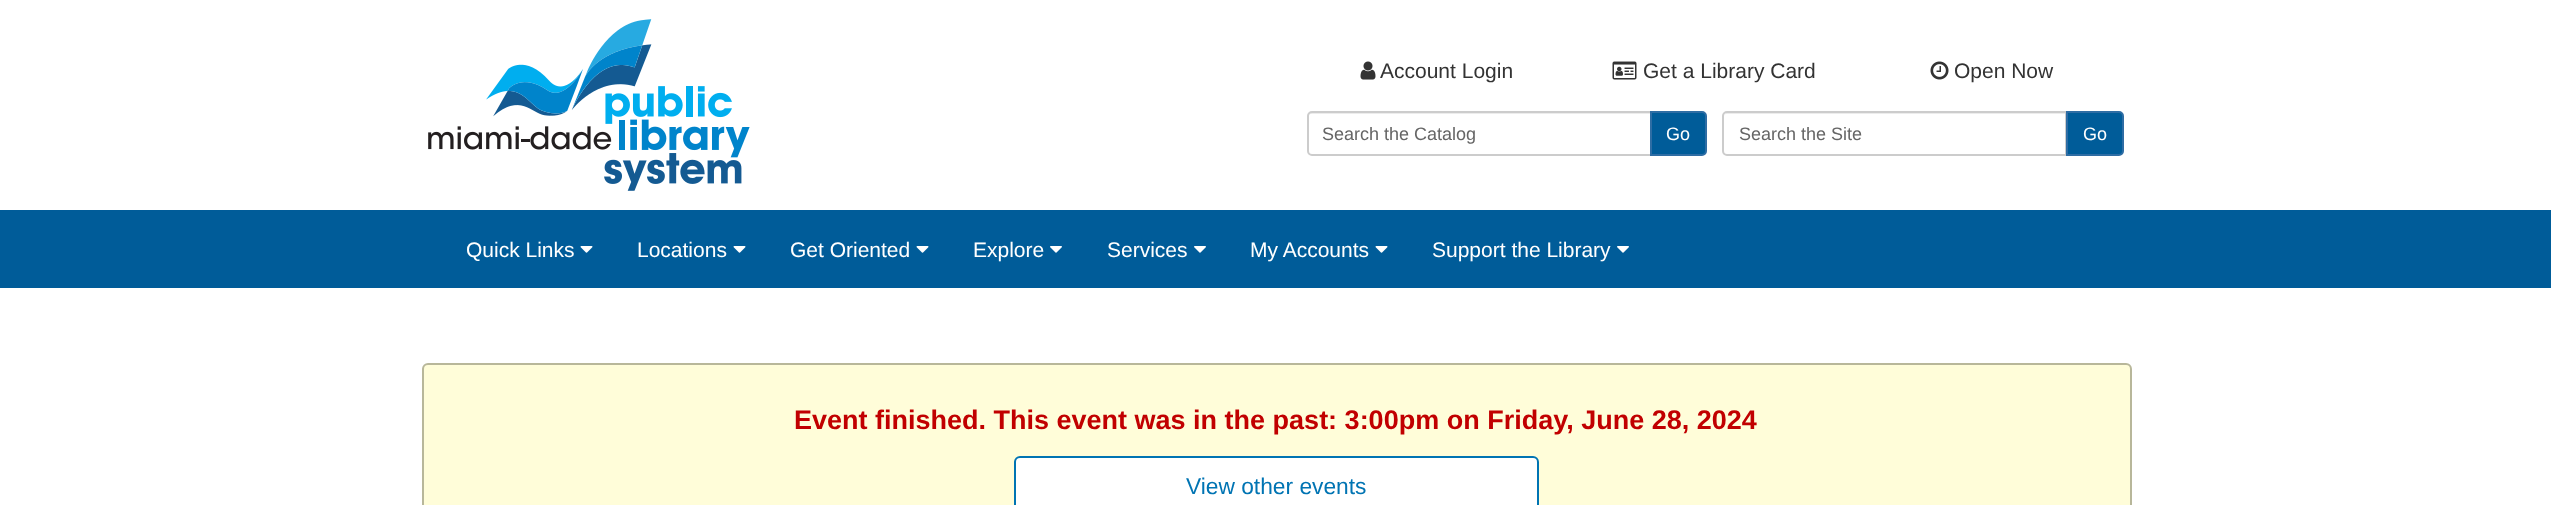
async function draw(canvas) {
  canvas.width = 2551;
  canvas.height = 505;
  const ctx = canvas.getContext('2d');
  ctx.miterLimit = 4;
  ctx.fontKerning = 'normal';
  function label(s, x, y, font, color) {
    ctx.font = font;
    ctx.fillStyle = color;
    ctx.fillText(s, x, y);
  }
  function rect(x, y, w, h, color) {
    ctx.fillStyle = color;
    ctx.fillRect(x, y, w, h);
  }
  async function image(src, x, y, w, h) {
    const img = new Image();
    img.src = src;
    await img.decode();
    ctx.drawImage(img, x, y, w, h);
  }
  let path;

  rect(0, 0, 2551, 505, '#fff');
  await image('assets/img1.png', 428, 19, 322, 172);
  await image('assets/img2.png', 1360, 61, 16, 19);
  label('Account Login', 1380, 78, '21px Liberation Sans', '#333');
  await image('assets/img3.png', 1612, 61, 25, 19);
  label('Get a Library Card', 1643, 78, '21px Liberation Sans', '#333');
  await image('assets/img4.png', 1930, 61, 19, 19);
  label('Open Now', 1954, 78, '21px Liberation Sans', '#333');
  ctx.fillStyle = '#ececec';
  path = new Path2D('M1311 114H1650V113H1311C1309 113 1308 115 1308 117C1308 115 1309 114 1311 114Z');
  ctx.fill(path);
  ctx.beginPath();
  ctx.roundRect(1308, 112, 343, 43, [4, 0, 0, 4]);
  ctx.strokeStyle = '#ccc';
  ctx.lineWidth = 2;
  ctx.stroke();
  label('Search the Catalog', 1322, 140, '18px Liberation Sans', '#666');
  ctx.fillStyle = '#005c99';
  ctx.beginPath();
  ctx.roundRect(1651, 112, 55, 43, [0, 4, 4, 0]);
  ctx.fill();
  ctx.strokeStyle = '#2e6da4';
  ctx.stroke();
  label('Go', 1666, 140, '18px Liberation Sans', '#fff');
  ctx.fillStyle = '#ececec';
  path = new Path2D('M1726 114H2066V113H1727C1725 113 1724 115 1724 117C1724 115 1725 114 1726 114Z');
  ctx.fill(path);
  ctx.beginPath();
  ctx.roundRect(1723, 112, 343, 43, [4, 0, 0, 4]);
  ctx.strokeStyle = '#ccc';
  ctx.stroke();
  label('Search the Site', 1739, 140, '18px Liberation Sans', '#666');
  ctx.fillStyle = '#005c99';
  ctx.beginPath();
  ctx.roundRect(2067, 112, 56, 43, [0, 4, 4, 0]);
  ctx.fill();
  ctx.strokeStyle = '#2e6da4';
  ctx.stroke();
  label('Go', 2083, 140, '18px Liberation Sans', '#fff');
  rect(0, 210, 2551, 78, '#005c99');
  label('Quick Links', 466, 257, '21px Liberation Sans', '#fff');
  await image('assets/img5.png', 580, 246, 13, 7);
  label('Locations', 637, 257, '21px Liberation Sans', '#fff');
  await image('assets/img5.png', 733, 246, 13, 7);
  label('Get Oriented', 790, 257, '21px Liberation Sans', '#fff');
  await image('assets/img5.png', 916, 246, 13, 7);
  label('Explore', 973, 257, '21px Liberation Sans', '#fff');
  await image('assets/img6.png', 1050, 246, 12, 7);
  label('Services', 1107, 257, '21px Liberation Sans', '#fff');
  await image('assets/img6.png', 1194, 246, 12, 7);
  label('My Accounts', 1250, 257, '21px Liberation Sans', '#fff');
  await image('assets/img5.png', 1375, 246, 13, 7);
  label('Support the Library', 1432, 257, '21px Liberation Sans', '#fff');
  await image('assets/img6.png', 1617, 246, 12, 7);
  ctx.fillStyle = '#fffdd9';
  ctx.beginPath();
  ctx.roundRect(423, 364, 1708, 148, 5);
  ctx.fill();
  ctx.strokeStyle = '#b8b79a';
  ctx.stroke();
  label('Event finished. This event was in the past: 3:00pm on Friday, June 28, 2024', 794, 429, 'bold 27px Liberation Sans', '#c10000');
  ctx.fillStyle = '#fff';
  ctx.beginPath();
  ctx.roundRect(1015, 457, 523, 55, 5);
  ctx.fill();
  ctx.strokeStyle = '#0074b3';
  ctx.stroke();
  label('View other events', 1186, 494, '22.75px Liberation Sans', '#0074b3');
}

draw(document.querySelector('canvas'));
